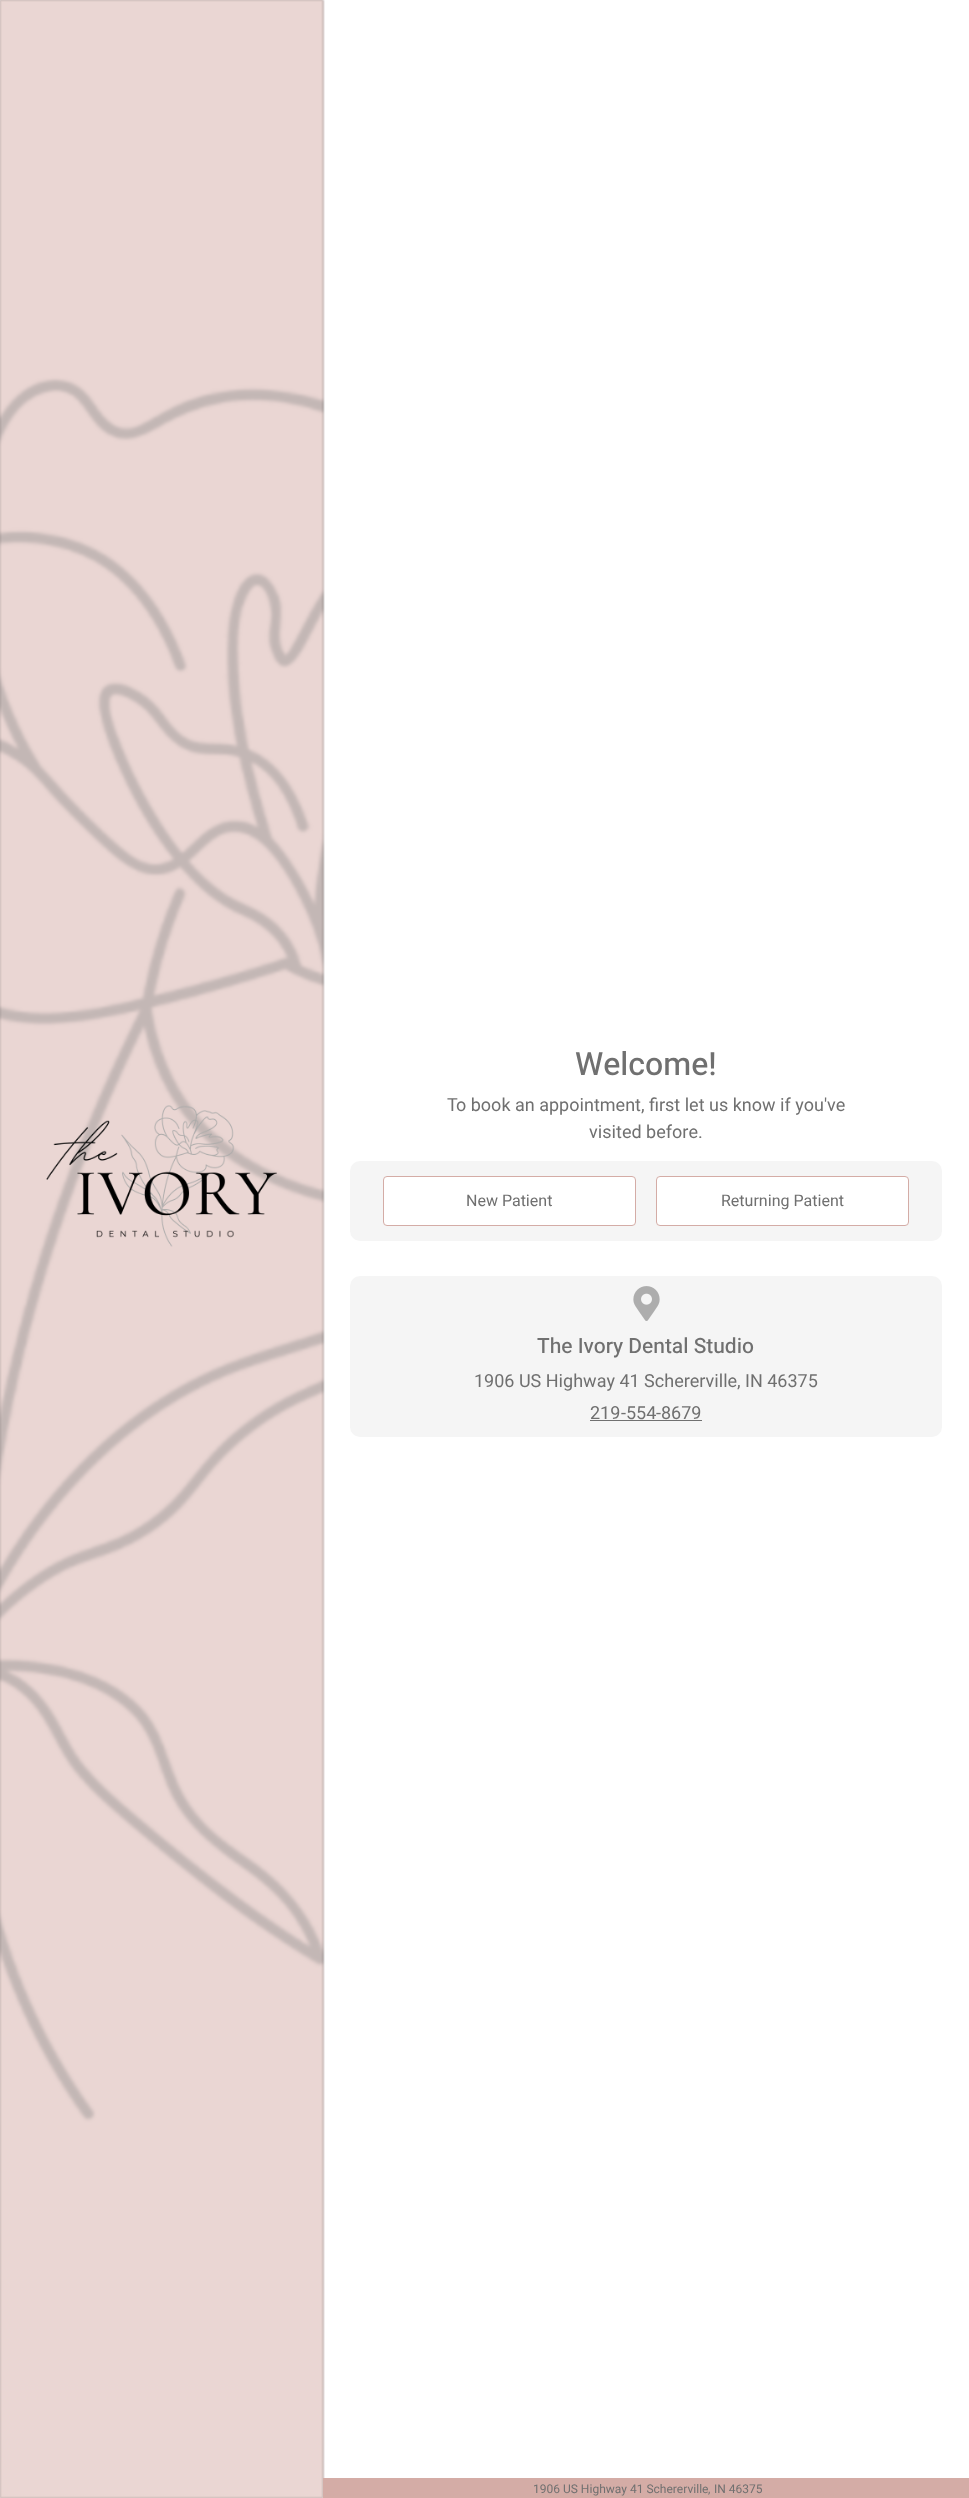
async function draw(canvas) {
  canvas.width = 969;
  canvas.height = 2498;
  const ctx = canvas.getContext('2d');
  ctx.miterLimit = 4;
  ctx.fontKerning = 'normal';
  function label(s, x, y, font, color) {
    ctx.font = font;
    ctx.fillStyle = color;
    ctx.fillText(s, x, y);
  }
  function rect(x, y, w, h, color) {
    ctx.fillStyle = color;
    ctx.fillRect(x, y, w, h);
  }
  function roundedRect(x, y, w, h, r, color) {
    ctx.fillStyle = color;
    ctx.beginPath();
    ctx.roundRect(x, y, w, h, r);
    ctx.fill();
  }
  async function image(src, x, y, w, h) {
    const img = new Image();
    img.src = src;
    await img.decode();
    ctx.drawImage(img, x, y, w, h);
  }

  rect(0, 0, 969, 2498, '#fff');
  ctx.fillStyle = '#707070';
  ctx.filter = 'blur(1px)';
  ctx.beginPath();
  ctx.rect(0, 0, 323, 2498);
  ctx.fill();
  ctx.filter = 'none';
  await image('assets/img1.png', 0, 0, 325, 2498);
  ctx.fillStyle = '#ffffff80';
  ctx.filter = 'blur(1px)';
  ctx.beginPath();
  ctx.rect(0, 0, 323, 2498);
  ctx.fill();
  ctx.filter = 'none';
  await image('assets/img2.png', 46, 1105, 231, 142);
  label('Welcome!', 575, 1075, '500 32px Heebo', '#707070');
  label('To book an appointment', 447, 1111, '18px Heebo', '#707070');
  label(',', 641, 1111, '18px Roboto', '#707070');
  label('first let us know if you\'ve', 649, 1111, '18px Heebo', '#707070');
  label('visited before.', 589, 1138, '18px Heebo', '#707070');
  roundedRect(350, 1161, 592, 80, 10, '#f5f5f5');
  ctx.fillStyle = '#fff';
  ctx.beginPath();
  ctx.roundRect(383.5, 1176.5, 252, 49, 3.5);
  ctx.fill();
  ctx.strokeStyle = '#d4aca6';
  ctx.stroke();
  label('New Patient', 466, 1206, '16px Heebo', '#707070');
  ctx.fillStyle = '#fff';
  ctx.beginPath();
  ctx.roundRect(656.5, 1176.5, 252, 49, 3.5);
  ctx.fill();
  ctx.stroke();
  label('Returning Patient', 721, 1206, '16px Heebo', '#707070');
  roundedRect(350, 1276, 592, 161, 10, '#f5f5f5');
  await image('assets/img3.png', 633, 1286, 27, 35);
  label('The Ivory Dental Studio', 537, 1353, '500 21px Heebo', '#707070');
  label('1906 US Highway 41 Schererville', 474, 1387, '18px Heebo', '#707070');
  label(',', 737, 1387, '18px Roboto', '#707070');
  label('IN 46375', 745, 1387, '18px Heebo', '#707070');
  label('219', 590, 1419, '18px Heebo', '#707070');
  label('-', 621, 1419, '18px Roboto', '#707070');
  rect(590, 1420, 112, 1, '#707070');
  label('554', 626, 1419, '18px Heebo', '#707070');
  label('-', 656, 1419, '18px Roboto', '#707070');
  label('8679', 661, 1419, '18px Heebo', '#707070');
  rect(323, 2478, 646, 20, '#d4aca6');
  label('1906 US Highway 41 Schererville', 533, 2493, '12px Heebo', '#707070');
  label(',', 708, 2493, '12px Roboto', '#707070');
  label('IN 46375', 714, 2493, '12px Heebo', '#707070');
}

draw(document.querySelector('canvas'));
